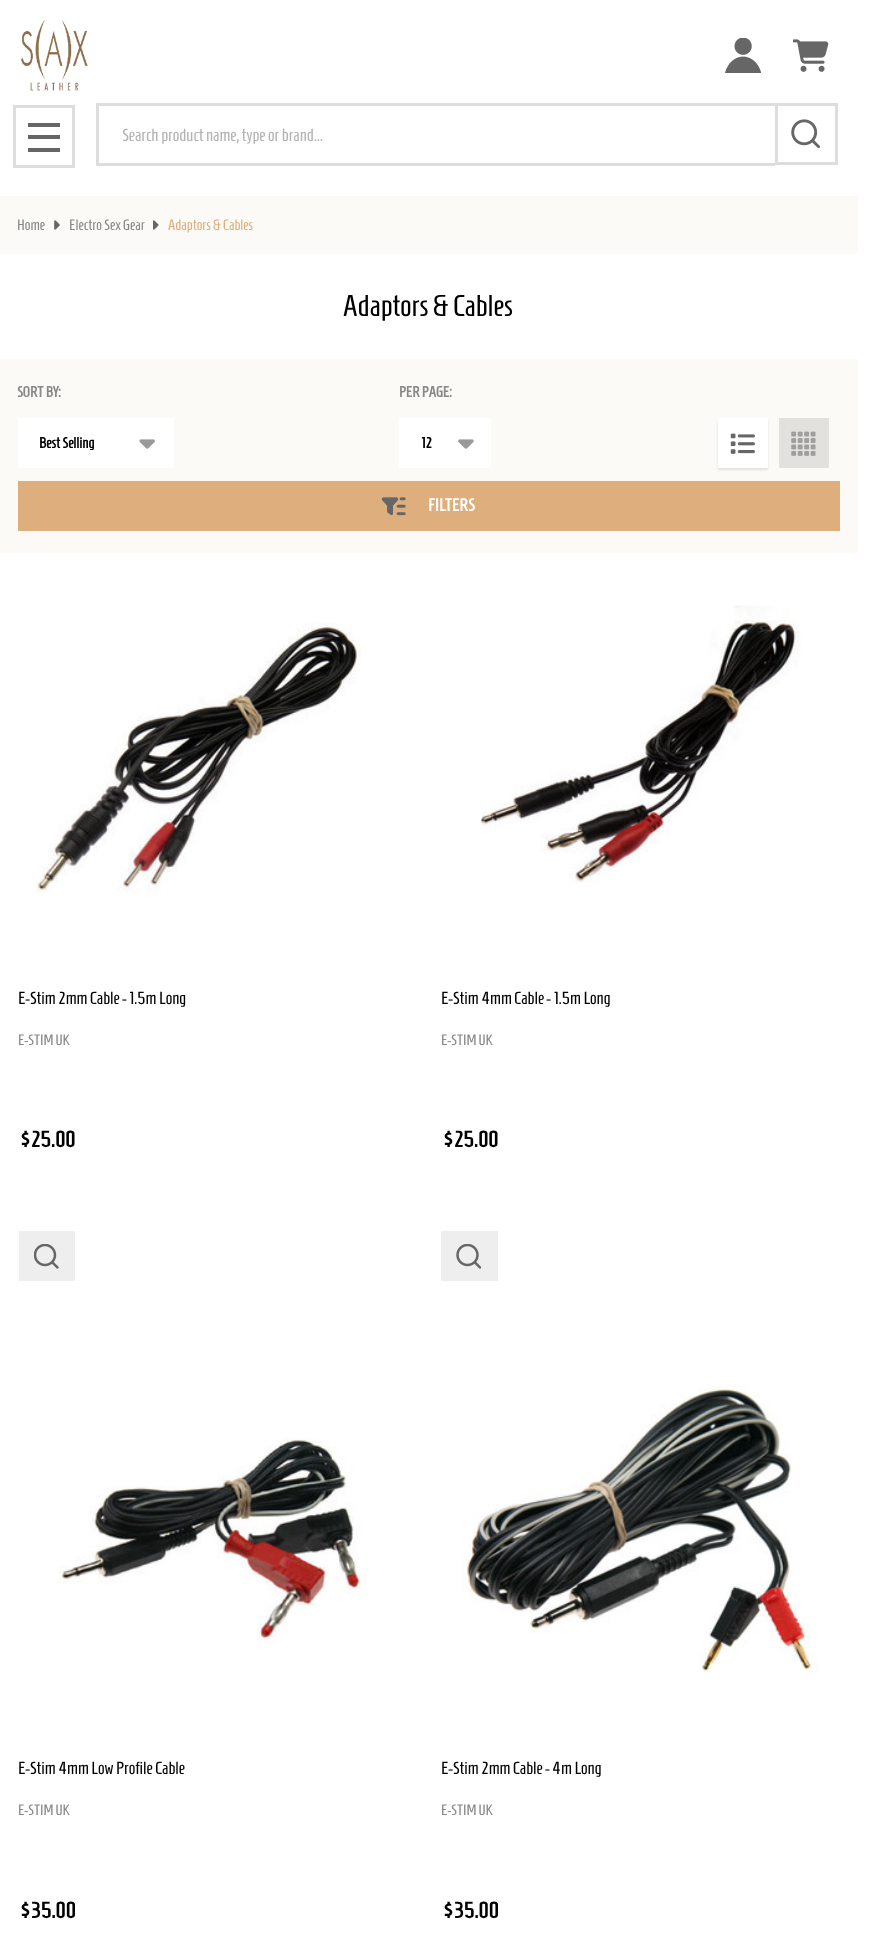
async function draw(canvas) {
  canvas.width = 875;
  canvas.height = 1950;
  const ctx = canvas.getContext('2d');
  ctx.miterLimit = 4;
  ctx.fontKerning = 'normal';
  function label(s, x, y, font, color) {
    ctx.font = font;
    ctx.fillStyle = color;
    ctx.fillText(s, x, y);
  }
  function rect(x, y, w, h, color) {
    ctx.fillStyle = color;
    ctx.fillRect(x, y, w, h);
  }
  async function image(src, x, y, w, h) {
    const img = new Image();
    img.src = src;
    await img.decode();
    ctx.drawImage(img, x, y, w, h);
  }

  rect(0, 0, 875, 1950, '#fff');
  await image('assets/img1.png', 20, 20, 68, 71);
  await image('assets/img2.png', 725, 38, 36, 35);
  await image('assets/img3.png', 793, 39, 36, 33);
  ctx.strokeStyle = '#ddd';
  ctx.lineWidth = 3;
  ctx.strokeRect(14.5, 106.5, 59, 60);
  rect(28, 135, 32, 4, '#666');
  rect(28, 123, 32, 4, '#666');
  rect(28, 148, 32, 4, '#666');
  rect(96, 103, 679, 3, '#ddd');
  rect(96, 163, 679, 3, '#ddd');
  rect(96, 103, 3, 62, '#ddd');
  label('Search product name, type or brand...', 122, 141, '17.5px Homenaje', '#b3b3b3');
  ctx.strokeRect(776.5, 104.5, 60, 59);
  await image('assets/img4.png', 791, 119, 29, 30);
  rect(0, 196, 858, 58, '#fbfaf6');
  label('Home', 17, 230, '15px Homenaje', '#888');
  await image('assets/img5.png', 54, 220, 6, 10);
  label('Electro Sex Gear', 69, 230, '15px Homenaje', '#888');
  await image('assets/img6.png', 153, 220, 6, 10);
  label('Adaptors & Cables', 168, 230, '15px Homenaje', '#deaf7d');
  label('Adaptors & Cables', 343, 316, '30px Homenaje', '#000');
  rect(0, 359, 858, 194, '#fbfaf6');
  label('SORT BY:', 17, 397, 'bold 15px Homenaje', '#888');
  rect(18, 418, 156, 50, '#fff');
  await image('assets/img7.png', 139, 439, 16, 10);
  ctx.save();
  ctx.beginPath();
  ctx.rect(40, 434, 83, 16);
  ctx.clip();
  label('Best Selling', 39, 448, 'bold 15px Homenaje', '#000');
  ctx.restore();
  label('PER PAGE:', 399, 397, 'bold 15px Homenaje', '#888');
  rect(399, 418, 92, 50, '#fff');
  await image('assets/img8.png', 458, 439, 16, 10);
  label('12', 421, 448, 'bold 15px Homenaje', '#000');
  ctx.fillStyle = '#0000001a';
  ctx.filter = 'blur(1px)';
  ctx.beginPath();
  ctx.rect(718, 420, 50, 50);
  ctx.fill();
  ctx.filter = 'none';
  rect(718, 418, 50, 50, '#fff');
  await image('assets/img9.png', 730, 433, 25, 21);
  rect(779, 418, 50, 50, '#e2e1dd');
  await image('assets/img10.png', 791, 431, 25, 25);
  rect(18, 481, 822, 50, '#deaf7d');
  await image('assets/img11.png', 381, 497, 25, 19);
  label('FILTERS', 428, 511, 'bold 17.5px Homenaje', '#fff');
  await image('assets/img12.png', 35, 622, 326, 271);
  label('E-Stim 2mm Cable - 1.5m Long', 18, 1004, '17.5px Homenaje', '#000');
  label('E-STIM UK', 18, 1045, '15px Homenaje', '#888');
  label('$25.00', 18, 1147, 'bold 22.5px Homenaje', '#000');
  rect(19, 1231, 56, 50, '#eee');
  await image('assets/img13.png', 34, 1244, 25, 25);
  await image('assets/img14.png', 480, 605, 321, 278);
  label('E-Stim 4mm Cable - 1.5m Long', 441, 1004, '17.5px Homenaje', '#000');
  label('E-STIM UK', 441, 1045, '15px Homenaje', '#888');
  label('$25.00', 441, 1147, 'bold 22.5px Homenaje', '#000');
  rect(441, 1231, 57, 50, '#eee');
  await image('assets/img15.png', 456, 1244, 25, 25);
  await image('assets/img16.png', 59, 1437, 308, 207);
  label('E-Stim 4mm Low Profile Cable', 18, 1774, '17.5px Homenaje', '#000');
  label('E-STIM UK', 18, 1815, '15px Homenaje', '#888');
  label('$35.00', 18, 1918, 'bold 22.5px Homenaje', '#000');
  await image('assets/img17.png', 461, 1384, 358, 289);
  label('E-Stim 2mm Cable - 4m Long', 441, 1774, '17.5px Homenaje', '#000');
  label('E-STIM UK', 441, 1815, '15px Homenaje', '#888');
  label('$35.00', 441, 1918, 'bold 22.5px Homenaje', '#000');
}

draw(document.querySelector('canvas'));
